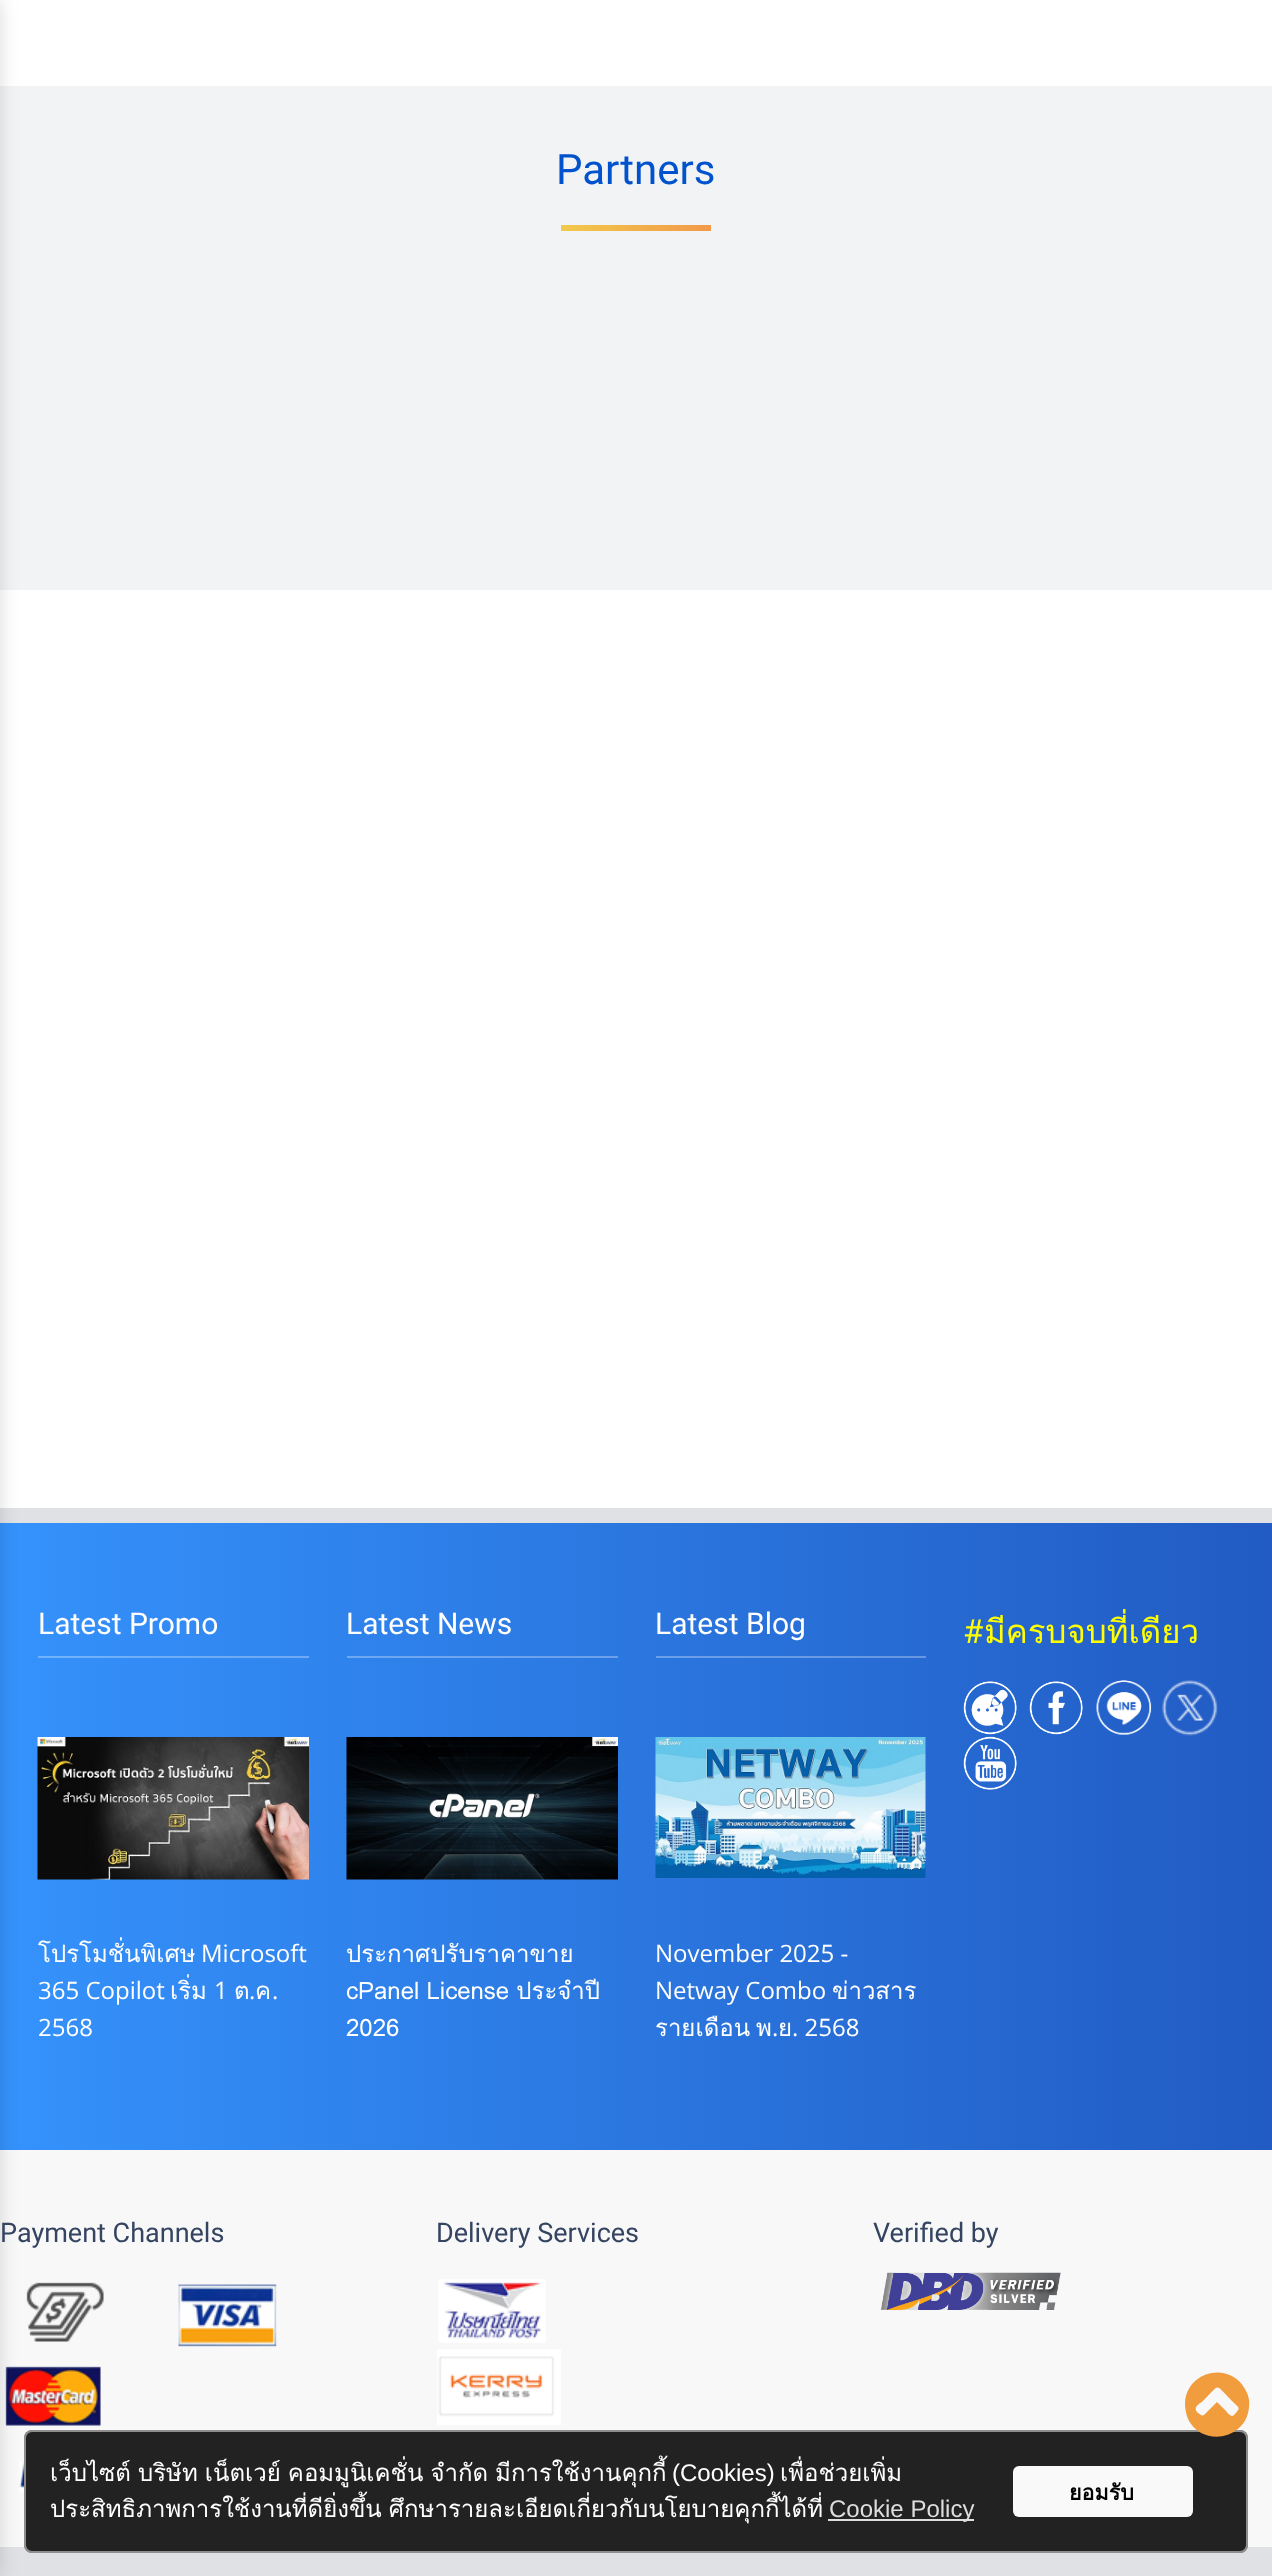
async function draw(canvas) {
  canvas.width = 1272;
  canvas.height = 2576;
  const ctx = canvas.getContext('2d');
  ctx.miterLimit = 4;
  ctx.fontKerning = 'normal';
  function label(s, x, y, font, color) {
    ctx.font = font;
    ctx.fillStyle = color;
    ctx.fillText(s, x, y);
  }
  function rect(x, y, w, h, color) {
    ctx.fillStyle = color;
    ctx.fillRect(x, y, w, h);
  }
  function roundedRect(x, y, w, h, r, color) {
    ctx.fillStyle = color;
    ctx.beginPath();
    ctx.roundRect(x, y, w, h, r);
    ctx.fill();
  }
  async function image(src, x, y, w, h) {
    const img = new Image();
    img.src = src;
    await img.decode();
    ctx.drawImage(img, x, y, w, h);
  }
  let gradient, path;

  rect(0, 0, 1272, 2576, '#fff');
  rect(0, 86, 1272, 504, '#f1f3f4');
  rect(0, 1508, 1272, 1068, '#e0e1e5');
  gradient = ctx.createLinearGradient(0, 1836, 1272, 1836);
  gradient.addColorStop(0, '#3592fc');
  gradient.addColorStop(1, '#215bc3');
  ctx.fillStyle = gradient;
  ctx.fillRect(0, 1523, 1272, 627);
  rect(0, 2150, 1272, 397, '#f8f8f8');
  await image('assets/img9.png', 26, 2282, 78, 60);
  await image('assets/img11.png', 5, 2366, 96, 60);
  await image('assets/img12.png', 19, 2461, 5, 32);
  roundedRect(24, 2430, 1224, 123, 8, '#222');
  ctx.beginPath();
  ctx.roundRect(25, 2431, 1222, 121, 7);
  ctx.strokeStyle = '#f9f9f980';
  ctx.lineWidth = 2;
  ctx.stroke();
  ctx.fillStyle = '#00000024';
  ctx.filter = 'blur(9px)';
  ctx.beginPath();
  ctx.rect(-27, 0, 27, 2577);
  ctx.fill();
  ctx.filter = 'none';
  label('Partners', 556, 184, '42px Roboto', '#0052cd');
  gradient = ctx.createLinearGradient(561, 228, 711, 228);
  gradient.addColorStop(0, '#f2c94c');
  gradient.addColorStop(1, '#f2994a');
  ctx.fillStyle = gradient;
  ctx.fillRect(561, 225, 150, 6);
  gradient = ctx.createLinearGradient(0, 1836, 1272, 1836);
  gradient.addColorStop(0, '#72b3fd');
  gradient.addColorStop(1, '#648cd5');
  ctx.fillStyle = gradient;
  ctx.fillRect(656, 1656, 270, 2);
  ctx.fillRect(347, 1656, 271, 2);
  ctx.fillRect(38, 1656, 271, 2);
  label('Latest Promo', 38, 1634, '30px Roboto', '#fff');
  await image('assets/img1.png', 37, 1737, 272, 143);
  label('โปรโมชั่นพิเศษ', 38, 1962, '24px Loma', '#fff');
  label('Microsoft', 201, 1962, '24px Open Sans', '#fff');
  label('365 Copilot', 38, 1999, '24px Open Sans', '#fff');
  label('เริ่ม', 170, 1999, '24px Loma', '#fff');
  label('1', 214, 1999, '24px Open Sans', '#fff');
  label('ต', 234, 1999, '24px Loma', '#fff');
  label('.', 249, 1999, '24px Open Sans', '#fff');
  label('ค', 255, 1999, '24px Loma', '#fff');
  label('.', 272, 1999, '24px Open Sans', '#fff');
  label('2568', 38, 2036, '24px Open Sans', '#fff');
  label('Latest News', 346, 1634, '30px Roboto', '#fff');
  await image('assets/img2.png', 346, 1737, 272, 143);
  label('ประกาศปรับราคาขาย', 346, 1962, '24px Loma', '#fff');
  ctx.wordSpacing = '-1px';
  label('cPanel License ประจำปี', 346, 1999, '24px Loma', '#fff');
  ctx.wordSpacing = '0px';
  label('2026', 346, 2036, '24px Loma', '#fff');
  label('Latest Blog', 655, 1634, '30px Roboto', '#fff');
  await image('assets/img3.png', 655, 1737, 271, 141);
  label('November 2025 -', 655, 1962, '24px Open Sans', '#fff');
  label('Netway Combo', 655, 1999, '24px Open Sans', '#fff');
  label('ข่าวสาร', 832, 1999, '24px Loma', '#fff');
  label('รายเดือน', 655, 2036, '24px Loma', '#fff');
  label('พ', 756, 2036, '24px Loma', '#fff');
  label('.', 772, 2036, '24px Open Sans', '#fff');
  label('ย', 778, 2036, '24px Loma', '#fff');
  label('. 2568', 792, 2036, '24px Open Sans', '#fff');
  label('#', 963, 1643, '33px Roboto', '#ff0');
  label('มีครบจบที่เดียว', 984, 1643, '33px Loma', '#ff0');
  await image('assets/img4.png', 963, 1681, 54, 54);
  await image('assets/img5.png', 1029, 1681, 54, 54);
  await image('assets/img6.png', 1096, 1680, 56, 55);
  await image('assets/img7.png', 1162, 1680, 56, 56);
  await image('assets/img8.png', 963, 1736, 54, 54);
  label('Payment Channels', 0, 2242, '27px Roboto', '#354461');
  await image('assets/img10.png', 178, 2284, 99, 63);
  label('Delivery Services', 436, 2242, '27px Roboto', '#354461');
  await image('assets/img13.png', 438, 2279, 108, 64);
  await image('assets/img14.png', 437, 2349, 124, 76);
  label('Verified by', 873, 2242, '27px Roboto', '#354461');
  await image('assets/img15.png', 880, 2272, 181, 38);
  ctx.fillStyle = '#f19c3d';
  path = new Path2D('M1234 2415C1241 2407 1240 2409 1232 2401C1214 2383 1221 2383 1203 2401C1199 2404 1193 2407 1197 2412C1202 2416 1202 2417 1206 2413L1217 2402L1226 2411C1227 2412 1231 2418 1234 2415ZM1245 2389C1248 2394 1250 2400 1249 2407C1247 2438 1205 2448 1189 2421C1186 2415 1185 2409 1185 2403C1187 2371 1229 2361 1245 2389Z');
  ctx.fill(path);
  ctx.wordSpacing = '-1px';
  label('เว็บไซต์ บริษัท เน็ตเวย์ คอมมูนิเคชั่น จำกัด มีการใช้งานคุกกี้', 50, 2481, '24px Loma', '#fff');
  ctx.wordSpacing = '0px';
  label('(Cookies)', 672, 2481, '24px Liberation Sans', '#fff');
  label('เพื่อช่วยเพิ่ม', 780, 2481, '24px Loma', '#fff');
  ctx.wordSpacing = '-1px';
  label('ประสิทธิภาพการใช้งานที่ดียิ่งขึ้น ศึกษารายละเอียดเกี่ยวกับนโยบายคุกกี้ได้ที่', 50, 2517, '24px Loma', '#fff');
  rect(828, 2519, 146, 2, '#dedede');
  ctx.wordSpacing = '0px';
  label('Cookie Policy', 829, 2517, '24px Liberation Sans', '#dedede');
  roundedRect(1013, 2466, 180, 51, 6, '#f9f9f9');
  label('ยอมรับ', 1069, 2500, 'bold 21.5px Loma', '#000');
}

draw(document.querySelector('canvas'));
